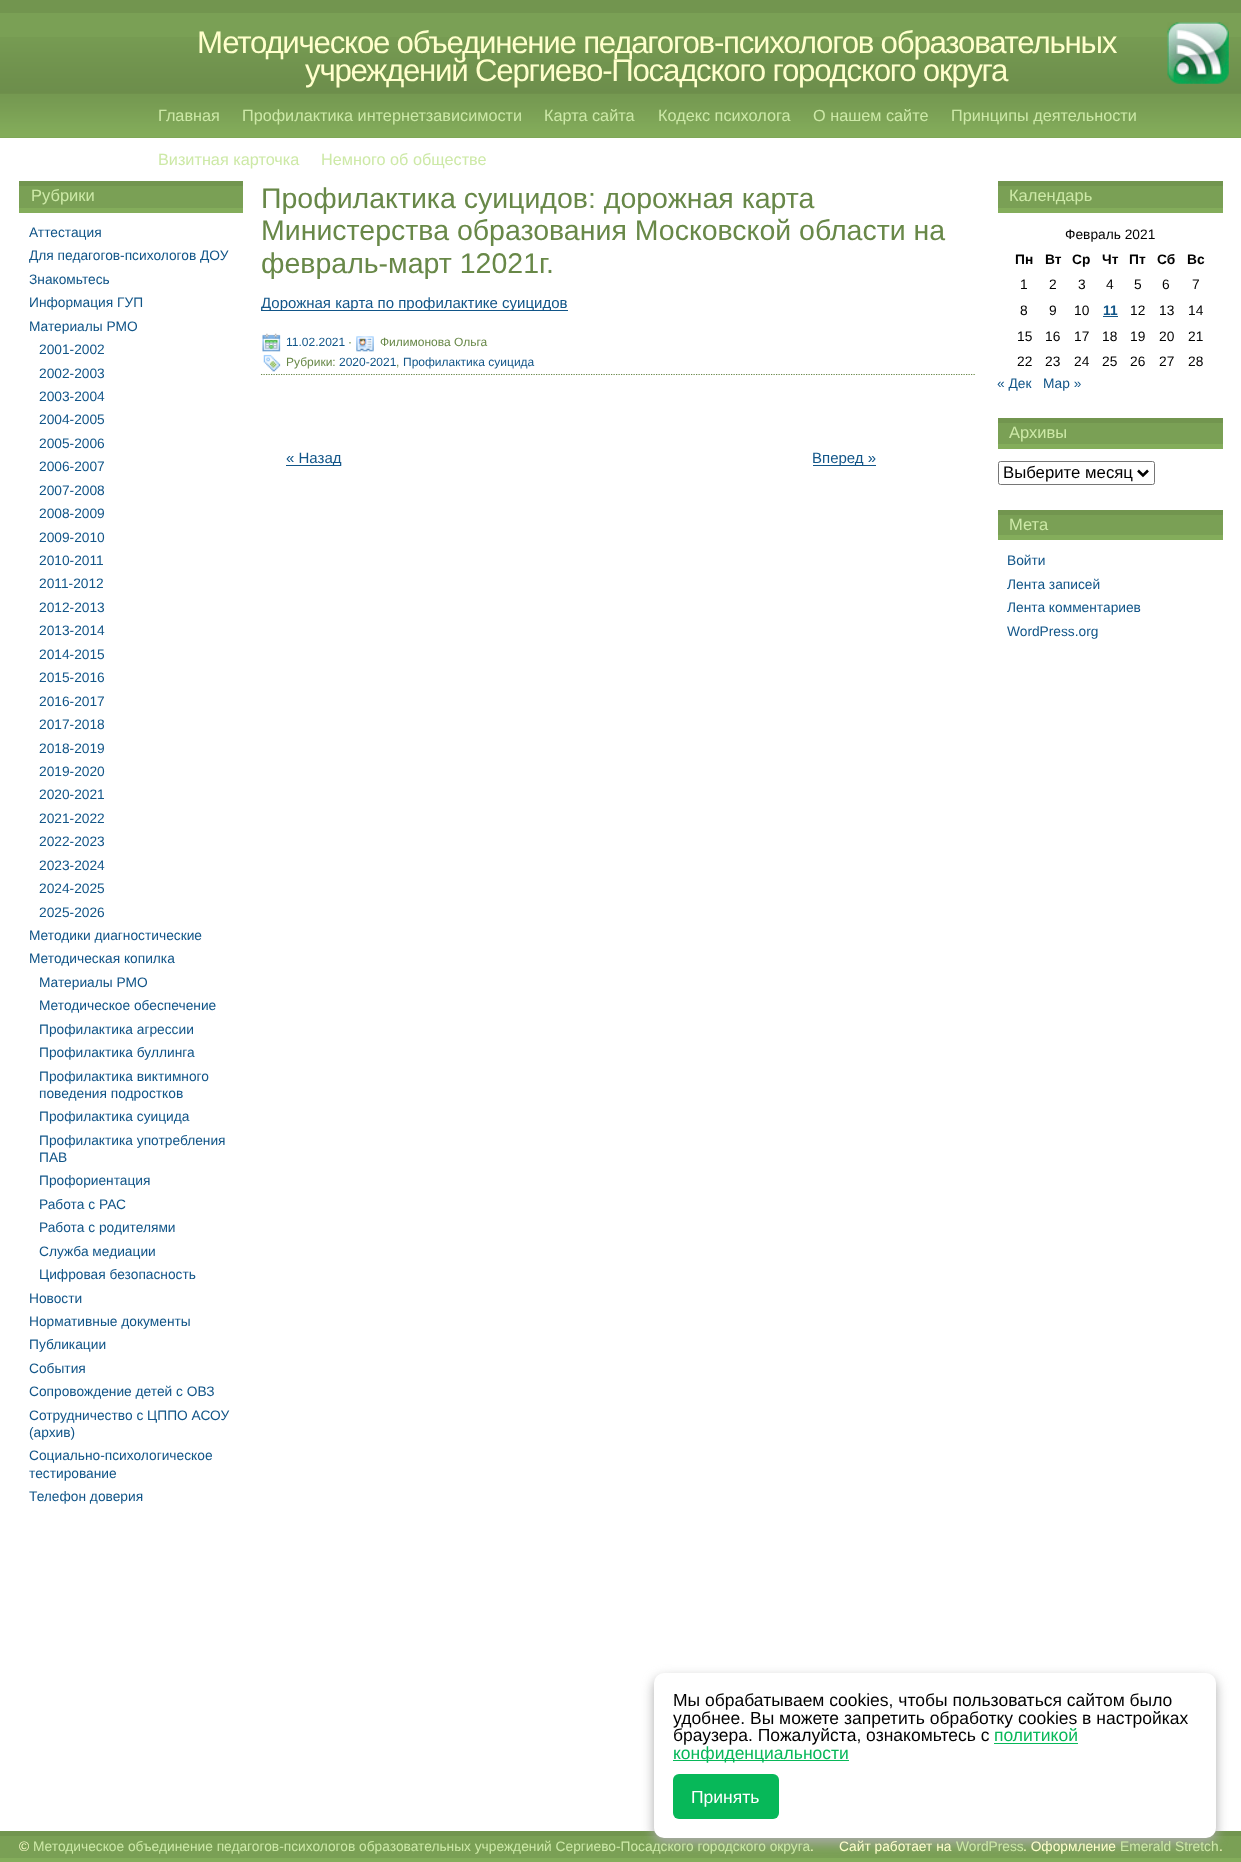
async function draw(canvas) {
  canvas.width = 1241;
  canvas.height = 1862;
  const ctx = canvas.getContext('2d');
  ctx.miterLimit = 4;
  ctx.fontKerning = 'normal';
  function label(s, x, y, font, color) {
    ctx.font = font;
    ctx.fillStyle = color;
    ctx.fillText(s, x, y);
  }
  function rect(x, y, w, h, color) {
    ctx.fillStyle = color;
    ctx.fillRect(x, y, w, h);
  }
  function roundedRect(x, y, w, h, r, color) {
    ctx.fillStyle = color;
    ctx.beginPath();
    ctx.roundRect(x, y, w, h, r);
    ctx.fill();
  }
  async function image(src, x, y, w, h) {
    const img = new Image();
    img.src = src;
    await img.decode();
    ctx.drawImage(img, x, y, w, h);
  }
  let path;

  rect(0, 0, 1241, 1862, '#fff');
  rect(0, 13, 1241, 125, '#7aa055');
  await image('assets/img1.png', 0, 37, 1241, 101);
  rect(0, 0, 1241, 13, '#72954f');
  ctx.letterSpacing = '-1.25px';
  label('Методическое объединение педагогов-психологов образовательных', 197, 53, '31.25px Liberation Sans', '#ffc');
  label('учреждений Сергиево-Посадского городского округа', 305, 81, '31.25px Liberation Sans', '#ffc');
  await image('assets/img2.png', 1167, 22, 62, 62);
  ctx.letterSpacing = '0px';
  label('Главная', 158, 121, '16.25px Liberation Sans', '#cde9a7');
  label('Профилактика интернетзависимости', 242, 121, '16.25px Liberation Sans', '#cde9a7');
  label('Карта сайта', 544, 121, '16.25px Liberation Sans', '#cde9a7');
  label('Кодекс психолога', 658, 121, '16.25px Liberation Sans', '#cde9a7');
  label('О нашем сайте', 813, 121, '16.25px Liberation Sans', '#cde9a7');
  label('Принципы деятельности', 951, 121, '16.25px Liberation Sans', '#cde9a7');
  label('Визитная карточка', 158, 165, '16.25px Liberation Sans', '#cde9a7');
  label('Немного об обществе', 321, 165, '16.25px Liberation Sans', '#cde9a7');
  rect(19, 186, 224, 22, '#7aa055');
  rect(19, 181, 224, 5, '#72954f');
  rect(19, 208, 224, 5, '#84ad5b');
  label('Рубрики', 31, 201, '16.5px Liberation Sans', '#cde9a7');
  label('Аттестация', 29, 237, '13.75px Liberation Sans', '#158');
  label('Для педагогов-психологов ДОУ', 29, 260, '13.75px Liberation Sans', '#158');
  label('Знакомьтесь', 29, 284, '13.75px Liberation Sans', '#158');
  label('Информация ГУП', 29, 307, '13.75px Liberation Sans', '#158');
  label('Материалы РМО', 29, 331, '13.75px Liberation Sans', '#158');
  label('2001-2002', 39, 354, '13.75px Liberation Sans', '#158');
  label('2002-2003', 39, 378, '13.75px Liberation Sans', '#158');
  label('2003-2004', 39, 401, '13.75px Liberation Sans', '#158');
  label('2004-2005', 39, 424, '13.75px Liberation Sans', '#158');
  label('2005-2006', 39, 448, '13.75px Liberation Sans', '#158');
  label('2006-2007', 39, 471, '13.75px Liberation Sans', '#158');
  label('2007-2008', 39, 495, '13.75px Liberation Sans', '#158');
  label('2008-2009', 39, 518, '13.75px Liberation Sans', '#158');
  label('2009-2010', 39, 542, '13.75px Liberation Sans', '#158');
  label('2010-2011', 39, 565, '13.75px Liberation Sans', '#158');
  label('2011-2012', 39, 588, '13.75px Liberation Sans', '#158');
  label('2012-2013', 39, 612, '13.75px Liberation Sans', '#158');
  label('2013-2014', 39, 635, '13.75px Liberation Sans', '#158');
  label('2014-2015', 39, 659, '13.75px Liberation Sans', '#158');
  label('2015-2016', 39, 682, '13.75px Liberation Sans', '#158');
  label('2016-2017', 39, 706, '13.75px Liberation Sans', '#158');
  label('2017-2018', 39, 729, '13.75px Liberation Sans', '#158');
  label('2018-2019', 39, 753, '13.75px Liberation Sans', '#158');
  label('2019-2020', 39, 776, '13.75px Liberation Sans', '#158');
  label('2020-2021', 39, 799, '13.75px Liberation Sans', '#158');
  label('2021-2022', 39, 823, '13.75px Liberation Sans', '#158');
  label('2022-2023', 39, 846, '13.75px Liberation Sans', '#158');
  label('2023-2024', 39, 870, '13.75px Liberation Sans', '#158');
  label('2024-2025', 39, 893, '13.75px Liberation Sans', '#158');
  label('2025-2026', 39, 917, '13.75px Liberation Sans', '#158');
  label('Методики диагностические', 29, 940, '13.75px Liberation Sans', '#158');
  label('Методическая копилка', 29, 963, '13.75px Liberation Sans', '#158');
  label('Материалы РМО', 39, 987, '13.75px Liberation Sans', '#158');
  label('Методическое обеспечение', 39, 1010, '13.75px Liberation Sans', '#158');
  label('Профилактика агрессии', 39, 1034, '13.75px Liberation Sans', '#158');
  label('Профилактика буллинга', 39, 1057, '13.75px Liberation Sans', '#158');
  label('Профилактика виктимного', 39, 1081, '13.75px Liberation Sans', '#158');
  label('поведения подростков', 39, 1098, '13.75px Liberation Sans', '#158');
  label('Профилактика суицида', 39, 1121, '13.75px Liberation Sans', '#158');
  label('Профилактика употребления', 39, 1145, '13.75px Liberation Sans', '#158');
  label('ПАВ', 39, 1162, '13.75px Liberation Sans', '#158');
  label('Профориентация', 39, 1185, '13.75px Liberation Sans', '#158');
  label('Работа с РАС', 39, 1209, '13.75px Liberation Sans', '#158');
  label('Работа с родителями', 39, 1232, '13.75px Liberation Sans', '#158');
  label('Служба медиации', 39, 1256, '13.75px Liberation Sans', '#158');
  label('Цифровая безопасность', 39, 1279, '13.75px Liberation Sans', '#158');
  label('Новости', 29, 1303, '13.75px Liberation Sans', '#158');
  label('Нормативные документы', 29, 1326, '13.75px Liberation Sans', '#158');
  label('Публикации', 29, 1349, '13.75px Liberation Sans', '#158');
  label('События', 29, 1373, '13.75px Liberation Sans', '#158');
  label('Сопровождение детей с ОВЗ', 29, 1396, '13.75px Liberation Sans', '#158');
  label('Сотрудничество с ЦППО АСОУ', 29, 1420, '13.75px Liberation Sans', '#158');
  label('(архив)', 29, 1437, '13.75px Liberation Sans', '#158');
  label('Социально-психологическое', 29, 1460, '13.75px Liberation Sans', '#158');
  label('тестирование', 29, 1478, '13.75px Liberation Sans', '#158');
  label('Телефон доверия', 29, 1501, '13.75px Liberation Sans', '#158');
  label('Профилактика суицидов: дорожная карта', 261, 208, '28.5px Liberation Sans', '#688848');
  label('Министерства образования Московской области на', 261, 240, '28.5px Liberation Sans', '#688848');
  label('февраль-март 12021г.', 261, 273, '28.5px Liberation Sans', '#688848');
  rect(261, 310, 307, 1, '#158');
  label('Дорожная карта по профилактике суицидов', 261, 308, '15px Liberation Sans', '#158');
  path = new Path2D('M261 374.5H976');
  ctx.strokeStyle = '#688848';
  ctx.lineWidth = 1.2;
  ctx.setLineDash([1.25, 1.25]);
  ctx.stroke(path);
  await image('assets/img3.png', 262, 333, 19, 19);
  label('11.02.2021', 286, 346, '12px Liberation Sans', '#158');
  label('·', 348, 346, '12px Liberation Sans', '#688848');
  await image('assets/img4.png', 356, 336, 18, 16);
  label('Филимонова Ольга', 380, 346, '12px Liberation Sans', '#688848');
  await image('assets/img5.png', 263, 354, 18, 18);
  label('Рубрики:', 286, 366, '12px Liberation Sans', '#688848');
  label('2020-2021', 339, 366, '12px Liberation Sans', '#158');
  label(',', 396, 366, '12px Liberation Sans', '#688848');
  label('Профилактика суицида', 403, 366, '12px Liberation Sans', '#158');
  rect(286, 465, 55, 1, '#158');
  label('« Назад', 286, 463, '15px Liberation Sans', '#158');
  rect(813, 465, 63, 1, '#158');
  label('Вперед »', 812, 463, '15px Liberation Sans', '#158');
  rect(998, 186, 225, 22, '#7aa055');
  rect(998, 181, 225, 5, '#72954f');
  rect(998, 208, 225, 5, '#84ad5b');
  label('Календарь', 1009, 201, '16.5px Liberation Sans', '#cde9a7');
  label('Февраль 2021', 1065, 239, '13.75px Liberation Sans', '#000');
  label('Пн', 1015, 264, 'bold 13.75px Liberation Sans', '#000');
  label('Вт', 1045, 264, 'bold 13.75px Liberation Sans', '#000');
  label('Ср', 1072, 264, 'bold 13.75px Liberation Sans', '#000');
  label('Чт', 1102, 264, 'bold 13.75px Liberation Sans', '#000');
  label('Пт', 1129, 264, 'bold 13.75px Liberation Sans', '#000');
  label('Сб', 1157, 264, 'bold 13.75px Liberation Sans', '#000');
  label('Вс', 1187, 264, 'bold 13.75px Liberation Sans', '#000');
  label('1', 1020, 289, '13.75px Liberation Sans', '#000');
  label('2', 1049, 289, '13.75px Liberation Sans', '#000');
  label('3', 1078, 289, '13.75px Liberation Sans', '#000');
  label('4', 1106, 289, '13.75px Liberation Sans', '#000');
  label('5', 1134, 289, '13.75px Liberation Sans', '#000');
  label('6', 1162, 289, '13.75px Liberation Sans', '#000');
  label('7', 1192, 289, '13.75px Liberation Sans', '#000');
  label('8', 1020, 315, '13.75px Liberation Sans', '#000');
  label('9', 1049, 315, '13.75px Liberation Sans', '#000');
  label('10', 1074, 315, '13.75px Liberation Sans', '#000');
  label('11', 1103, 315, 'bold 13.75px Liberation Sans', '#158');
  rect(1103, 316, 15, 1, '#158');
  label('12', 1130, 315, '13.75px Liberation Sans', '#000');
  label('13', 1159, 315, '13.75px Liberation Sans', '#000');
  label('14', 1188, 315, '13.75px Liberation Sans', '#000');
  label('15', 1017, 341, '13.75px Liberation Sans', '#000');
  label('16', 1045, 341, '13.75px Liberation Sans', '#000');
  label('17', 1074, 341, '13.75px Liberation Sans', '#000');
  label('18', 1102, 341, '13.75px Liberation Sans', '#000');
  label('19', 1130, 341, '13.75px Liberation Sans', '#000');
  label('20', 1159, 341, '13.75px Liberation Sans', '#000');
  label('21', 1188, 341, '13.75px Liberation Sans', '#000');
  label('22', 1017, 366, '13.75px Liberation Sans', '#000');
  label('23', 1045, 366, '13.75px Liberation Sans', '#000');
  label('24', 1074, 366, '13.75px Liberation Sans', '#000');
  label('25', 1102, 366, '13.75px Liberation Sans', '#000');
  label('26', 1130, 366, '13.75px Liberation Sans', '#000');
  label('27', 1159, 366, '13.75px Liberation Sans', '#000');
  label('28', 1188, 366, '13.75px Liberation Sans', '#000');
  label('« Дек', 997, 388, '13.75px Liberation Sans', '#158');
  label('Мар »', 1043, 388, '13.75px Liberation Sans', '#158');
  rect(998, 423, 225, 21, '#7aa055');
  rect(998, 418, 225, 5, '#72954f');
  rect(998, 444, 225, 5, '#84ad5b');
  label('Архивы', 1009, 438, '16.5px Liberation Sans', '#cde9a7');
  ctx.beginPath();
  ctx.roundRect(998.5, 461.5, 156, 23, 2);
  ctx.strokeStyle = '#767676';
  ctx.lineWidth = 1;
  ctx.setLineDash([]);
  ctx.stroke();
  path = new Path2D('M1138 470.5L1143 475.5L1148 470.5');
  ctx.strokeStyle = '#000';
  ctx.lineWidth = 2.5;
  ctx.stroke(path);
  label('Выберите месяц', 1003, 478, '16.75px Liberation Sans', '#000');
  rect(998, 515, 225, 20, '#7aa055');
  rect(998, 510, 225, 5, '#72954f');
  rect(998, 535, 225, 5, '#84ad5b');
  label('Мета', 1009, 530, '16.5px Liberation Sans', '#cde9a7');
  label('Войти', 1007, 565, '13.75px Liberation Sans', '#158');
  label('Лента записей', 1007, 589, '13.75px Liberation Sans', '#158');
  label('Лента комментариев', 1007, 612, '13.75px Liberation Sans', '#158');
  label('WordPress.org', 1007, 636, '13.75px Liberation Sans', '#158');
  rect(0, 1836, 1241, 22, '#7aa055');
  rect(0, 1831, 1241, 5, '#72954f');
  rect(0, 1858, 1241, 4, '#84ad5b');
  ctx.fillStyle = '#aaa';
  ctx.filter = 'blur(6px)';
  ctx.beginPath();
  ctx.roundRect(654, 1678, 562, 165, 10);
  ctx.fill();
  ctx.filter = 'none';
  roundedRect(654, 1673, 562, 165, 10, '#fff');
  label('Мы обрабатываем cookies, чтобы пользоваться сайтом было', 673, 1706, '17.5px Liberation Sans', '#000');
  label('удобнее. Вы можете запретить обработку cookies в настройках', 673, 1724, '17.5px Liberation Sans', '#000');
  label('браузера. Пожалуйста, ознакомьтесь с', 673, 1741, '17.5px Liberation Sans', '#000');
  label('политикой', 994, 1741, '17.5px Liberation Sans', '#07b859');
  rect(994, 1743, 84, 1, '#07b859');
  rect(673, 1760, 176, 1, '#07b859');
  label('конфиденциальности', 673, 1759, '17.5px Liberation Sans', '#07b859');
  roundedRect(673, 1774, 106, 45, 6, '#07b859');
  label('Принять', 691, 1803, '17.5px Liberation Sans', '#fff');
  label('©', 19, 1851, '13.75px Liberation Sans', '#ffc');
  label('Методическое объединение педагогов-психологов образовательных учреждений Сергиево-Посадского городского округа', 33, 1851, '13.75px Liberation Sans', '#cde9a7');
  label('.', 810, 1851, '13.75px Liberation Sans', '#ffc');
  label('Сайт работает на', 839, 1851, '13.75px Liberation Sans', '#ffc');
  label('WordPress', 956, 1851, '13.75px Liberation Sans', '#cde9a7');
  label('. Оформление', 1023, 1851, '13.75px Liberation Sans', '#ffc');
  label('Emerald Stretch', 1120, 1851, '13.75px Liberation Sans', '#cde9a7');
  label('.', 1219, 1851, '13.75px Liberation Sans', '#ffc');
}

draw(document.querySelector('canvas'));
